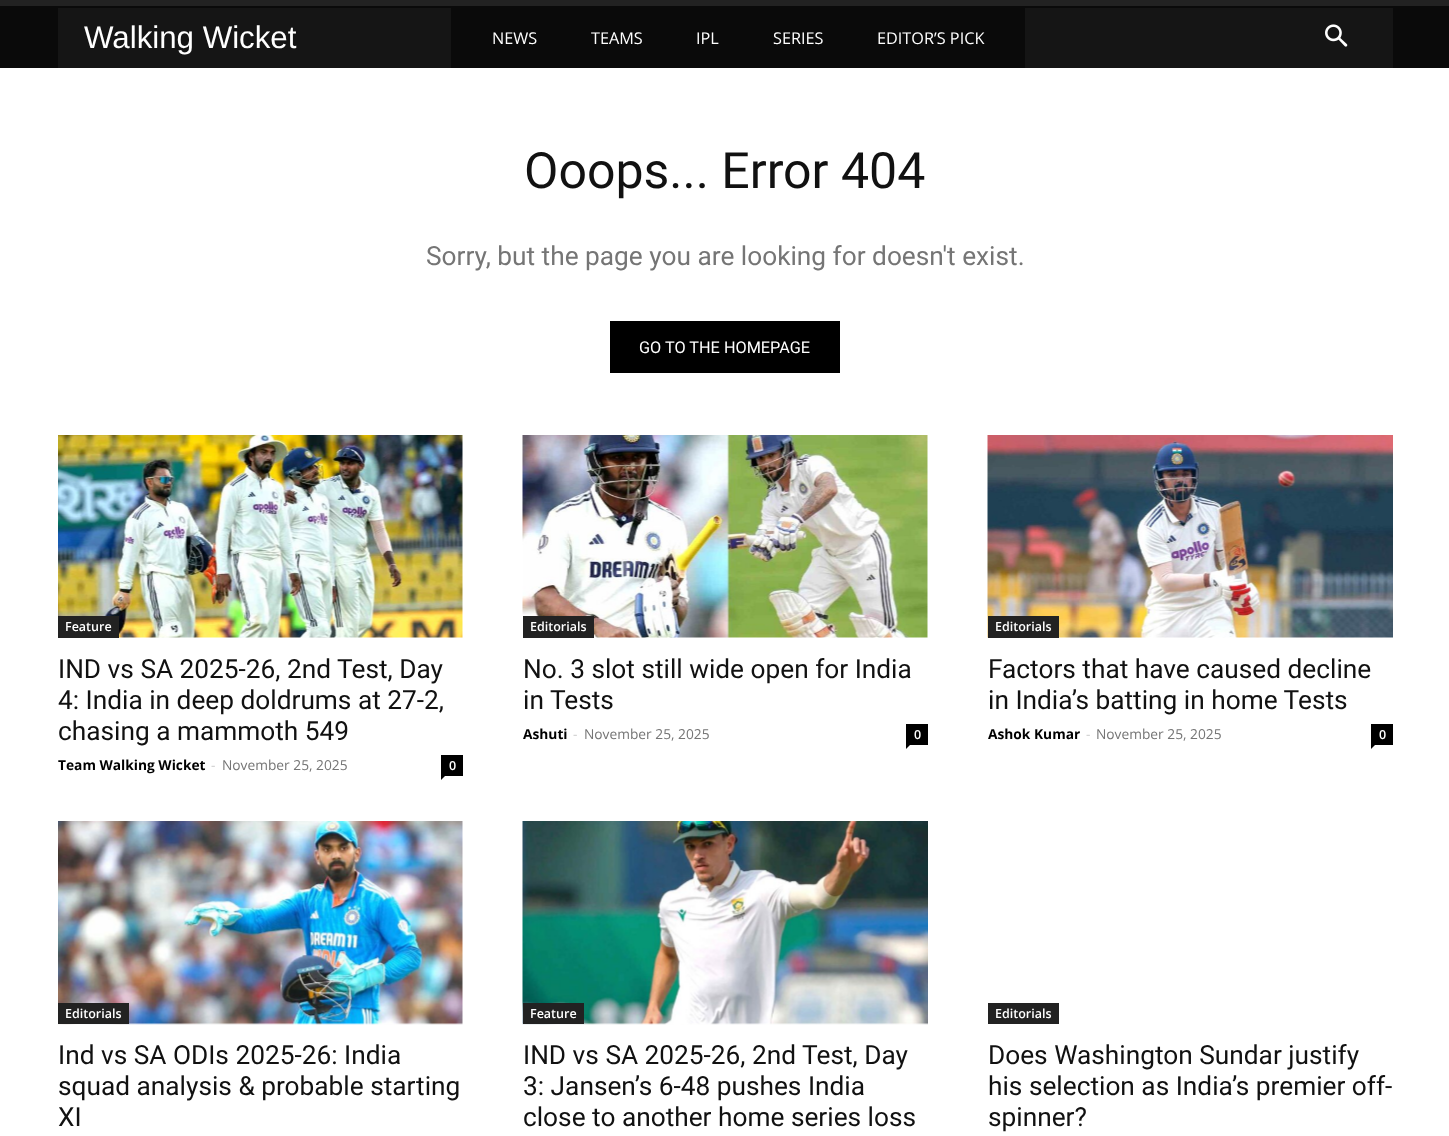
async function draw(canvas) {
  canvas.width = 1449;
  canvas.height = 1136;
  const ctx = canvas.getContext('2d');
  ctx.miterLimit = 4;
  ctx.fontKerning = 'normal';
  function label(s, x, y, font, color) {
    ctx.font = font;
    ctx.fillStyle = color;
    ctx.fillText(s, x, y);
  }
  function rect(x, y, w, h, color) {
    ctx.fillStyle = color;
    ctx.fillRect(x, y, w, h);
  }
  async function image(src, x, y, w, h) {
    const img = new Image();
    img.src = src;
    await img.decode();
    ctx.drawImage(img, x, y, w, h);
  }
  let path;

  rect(0, 0, 1449, 1136, '#fff');
  rect(0, 0, 1449, 6, '#222');
  rect(0, 6, 1449, 62, '#0a0a0a');
  rect(58, 8, 1335, 60, '#151515');
  label('Walking Wicket', 84, 48, '31.25px Liberation Sans', '#fff');
  rect(1003, 8, 22, 60, '#0a0a0a');
  rect(451, 8, 552, 60, '#0a0a0a');
  label('NEWS', 492, 44, '16.25px Open Sans', '#fff');
  label('TEAMS', 591, 44, '16.25px Open Sans', '#fff');
  label('IPL', 696, 44, '16.25px Open Sans', '#fff');
  label('SERIES', 773, 44, '16.25px Open Sans', '#fff');
  label('EDITOR’S PICK', 877, 44, '16.25px Open Sans', '#fff');
  await image('assets/img1.png', 1325, 24, 23, 23);
  label('Ooops... Error 404', 524, 188, '50px Roboto', '#111');
  label('Sorry, but the page you are looking for doesn\'t exist.', 426, 265, '26.25px Roboto', '#757575');
  rect(610, 321, 230, 52, '#000');
  label('GO TO THE HOMEPAGE', 639, 353, '16.25px Roboto', '#fff');
  await image('assets/img2.png', 58, 435, 405, 203);
  rect(58, 616, 61, 22, '#222');
  label('Feature', 65, 631, '600 12.5px Open Sans', '#fff');
  label('IND vs SA 2025-26, 2nd Test, Day', 58, 678, '26.25px Roboto', '#111');
  label('4: India in deep doldrums at 27-2,', 58, 709, '26.25px Roboto', '#111');
  label('chasing a mammoth 549', 58, 740, '26.25px Roboto', '#111');
  label('Team Walking Wicket', 58, 770, 'bold 13.75px Open Sans', '#000');
  label('-', 211, 770, '13.75px Open Sans', '#ccc');
  label('November 25, 2025', 222, 770, '13.75px Open Sans', '#757575');
  rect(441, 755, 22, 21, '#000');
  label('0', 449, 770, '600 12.5px Open Sans', '#fff');
  ctx.fillStyle = '#000';
  path = new Path2D('M441 776H445L441 780Z');
  ctx.fill(path);
  await image('assets/img3.png', 522, 435, 406, 203);
  rect(523, 616, 71, 22, '#222');
  label('Editorials', 530, 631, '600 12.5px Open Sans', '#fff');
  label('No. 3 slot still wide open for India', 523, 678, '26.25px Roboto', '#111');
  label('in Tests', 523, 709, '26.25px Roboto', '#111');
  label('Ashuti', 523, 739, 'bold 13.75px Open Sans', '#000');
  label('-', 573, 739, '13.75px Open Sans', '#ccc');
  label('November 25, 2025', 584, 739, '13.75px Open Sans', '#757575');
  rect(906, 724, 22, 21, '#000');
  label('0', 914, 739, '600 12.5px Open Sans', '#fff');
  ctx.fillStyle = '#000';
  path = new Path2D('M906 745H910L906 749Z');
  ctx.fill(path);
  await image('assets/img4.png', 987, 435, 406, 203);
  rect(988, 616, 71, 22, '#222');
  label('Editorials', 995, 631, '600 12.5px Open Sans', '#fff');
  label('Factors that have caused decline', 988, 678, '26.25px Roboto', '#111');
  label('in India’s batting in home Tests', 988, 709, '26.25px Roboto', '#111');
  label('Ashok Kumar', 988, 739, 'bold 13.75px Open Sans', '#000');
  label('-', 1086, 739, '13.75px Open Sans', '#ccc');
  label('November 25, 2025', 1096, 739, '13.75px Open Sans', '#757575');
  rect(1371, 724, 22, 21, '#000');
  label('0', 1379, 739, '600 12.5px Open Sans', '#fff');
  ctx.fillStyle = '#000';
  path = new Path2D('M1371 745H1375L1371 749Z');
  ctx.fill(path);
  await image('assets/img5.png', 58, 821, 405, 204);
  rect(58, 1003, 71, 21, '#222');
  label('Editorials', 65, 1018, '600 12.5px Open Sans', '#fff');
  label('Ind vs SA ODIs 2025-26: India', 58, 1064, '26.25px Roboto', '#111');
  label('squad analysis & probable starting', 58, 1095, '26.25px Roboto', '#111');
  label('XI', 58, 1126, '26.25px Roboto', '#111');
  await image('assets/img6.png', 522, 821, 406, 204);
  rect(523, 1003, 61, 21, '#222');
  label('Feature', 530, 1018, '600 12.5px Open Sans', '#fff');
  label('IND vs SA 2025-26, 2nd Test, Day', 523, 1064, '26.25px Roboto', '#111');
  label('3: Jansen’s 6-48 pushes India', 523, 1095, '26.25px Roboto', '#111');
  label('close to another home series loss', 523, 1126, '26.25px Roboto', '#111');
  rect(988, 1003, 71, 21, '#222');
  label('Editorials', 995, 1018, '600 12.5px Open Sans', '#fff');
  label('Does Washington Sundar justify', 988, 1064, '26.25px Roboto', '#111');
  label('his selection as India’s premier off-', 988, 1095, '26.25px Roboto', '#111');
  label('spinner?', 988, 1126, '26.25px Roboto', '#111');
}

draw(document.querySelector('canvas'));
